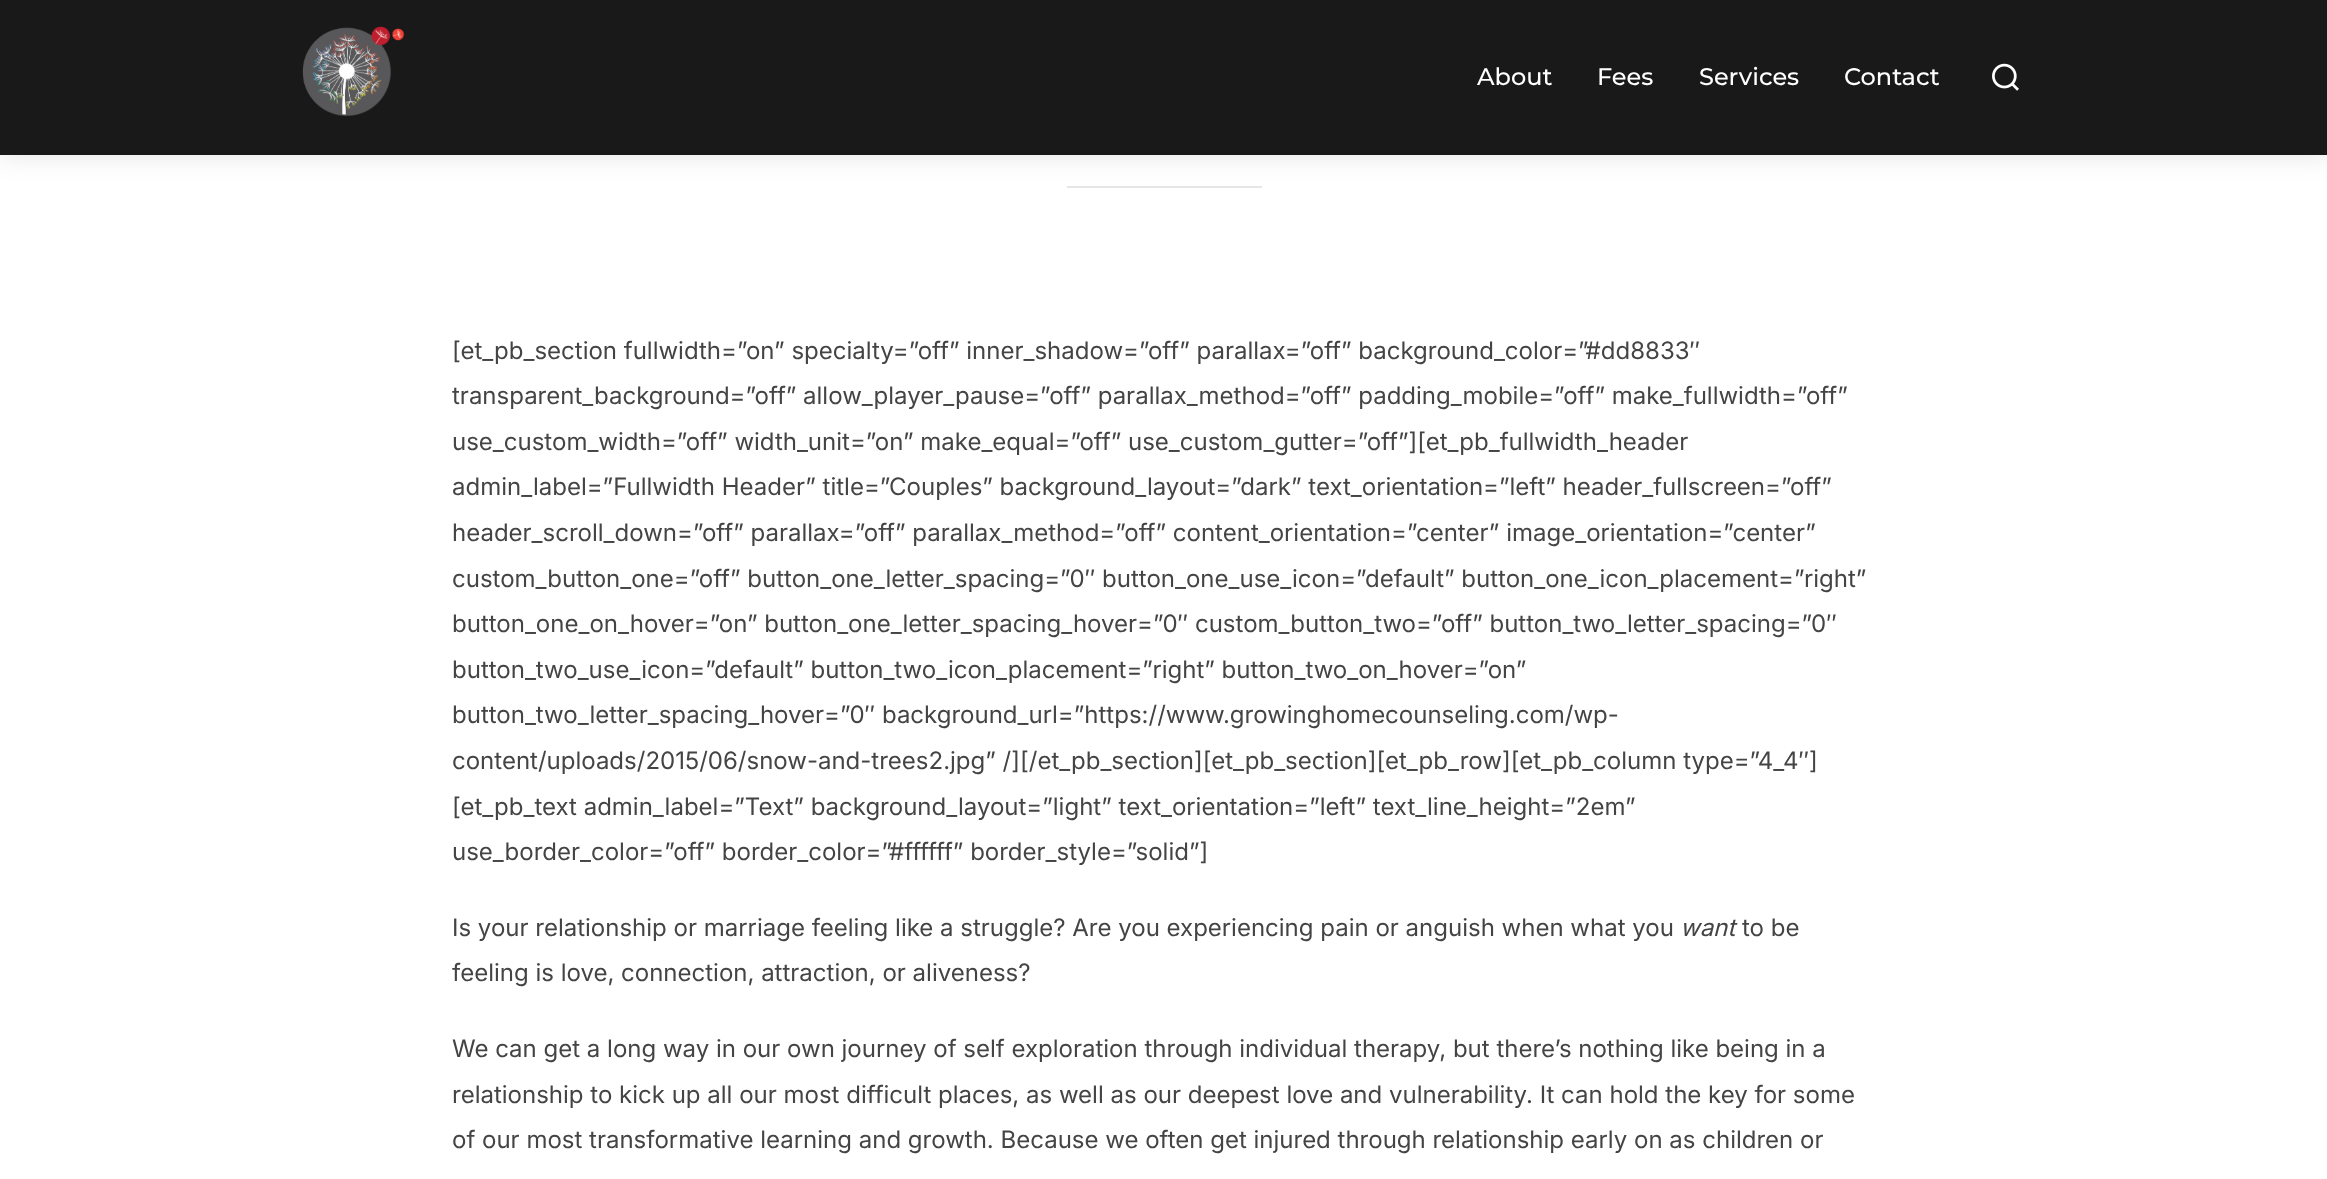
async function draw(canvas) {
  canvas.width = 2327;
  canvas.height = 1179;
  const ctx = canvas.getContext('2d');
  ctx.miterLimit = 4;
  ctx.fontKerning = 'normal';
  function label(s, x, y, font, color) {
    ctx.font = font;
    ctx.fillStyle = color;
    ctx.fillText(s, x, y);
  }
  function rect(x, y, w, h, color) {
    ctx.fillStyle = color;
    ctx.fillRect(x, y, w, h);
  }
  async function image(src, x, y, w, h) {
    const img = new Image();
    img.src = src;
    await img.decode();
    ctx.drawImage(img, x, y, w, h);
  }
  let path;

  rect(0, 0, 2327, 1179, '#fff');
  rect(1067, 186, 195, 2, '#e6e6e6');
  ctx.save();
  path = new Path2D('M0 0H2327V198H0ZM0 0H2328V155H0Z');
  ctx.clip(path, 'evenodd');
  ctx.fillStyle = '#0000001a';
  ctx.filter = 'blur(13.5px)';
  ctx.beginPath();
  ctx.rect(-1, -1, 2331, 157);
  ctx.fill();
  ctx.filter = 'none';
  ctx.restore();
  rect(0, 0, 2327, 155, '#000000e6');
  await image('assets/img1.png', 302, 26, 103, 91);
  label('About', 1477, 85, '500 24px Montserrat', '#fff');
  label('Fees', 1597, 85, '500 24px Montserrat', '#fff');
  label('Services', 1699, 85, '500 24px Montserrat', '#fff');
  label('Contact', 1844, 85, '500 24px Montserrat', '#fff');
  await image('assets/img2.png', 1992, 63, 27, 28);
  label('[et_pb_section fullwidth=”on” specialty=”off” inner_shadow=”off” parallax=”off” background_color=”#dd8833″', 452, 359, '24px Inter', '#444');
  label('transparent_background=”off” allow_player_pause=”off” parallax_method=”off” padding_mobile=”off” make_fullwidth=”off”', 452, 404, '24px Inter', '#444');
  label('use_custom_width=”off” width_unit=”on” make_equal=”off” use_custom_gutter=”off”][et_pb_fullwidth_header', 452, 450, '24px Inter', '#444');
  label('admin_label=”Fullwidth Header” title=”Couples” background_layout=”dark” text_orientation=”left” header_fullscreen=”off”', 452, 495, '24px Inter', '#444');
  label('header_scroll_down=”off” parallax=”off” parallax_method=”off” content_orientation=”center” image_orientation=”center”', 452, 541, '24px Inter', '#444');
  label('custom_button_one=”off” button_one_letter_spacing=”0″ button_one_use_icon=”default” button_one_icon_placement=”right”', 452, 587, '24px Inter', '#444');
  label('button_one_on_hover=”on” button_one_letter_spacing_hover=”0″ custom_button_two=”off” button_two_letter_spacing=”0″', 452, 632, '24px Inter', '#444');
  label('button_two_use_icon=”default” button_two_icon_placement=”right” button_two_on_hover=”on”', 452, 678, '24px Inter', '#444');
  label('button_two_letter_spacing_hover=”0″ background_url=”https://www.growinghomecounseling.com/wp-', 452, 723, '24px Inter', '#444');
  label('content/uploads/2015/06/snow-and-trees2.jpg” /][/et_pb_section][et_pb_section][et_pb_row][et_pb_column type=”4_4″]', 452, 769, '24px Inter', '#444');
  label('[et_pb_text admin_label=”Text” background_layout=”light” text_orientation=”left” text_line_height=”2em”', 452, 815, '24px Inter', '#444');
  label('use_border_color=”off” border_color=”#ffffff” border_style=”solid”]', 452, 860, '24px Inter', '#444');
  label('Is your relationship or marriage feeling like a struggle? Are you experiencing pain or anguish when what you', 452, 936, '24px Inter', '#444');
  label('want', 1680, 936, 'italic 24px Inter', '#444');
  label('to be', 1742, 936, '24px Inter', '#444');
  label('feeling is love, connection, attraction, or aliveness?', 452, 981, '24px Inter', '#444');
  label('We can get a long way in our own journey of self exploration through individual therapy, but there’s nothing like being in a', 452, 1057, '24px Inter', '#444');
  label('relationship to kick up all our most difficult places, as well as our deepest love and vulnerability. It can hold the key for some', 452, 1103, '24px Inter', '#444');
  label('of our most transformative learning and growth. Because we often get injured through relationship early on as children or', 452, 1148, '24px Inter', '#444');
}

draw(document.querySelector('canvas'));
